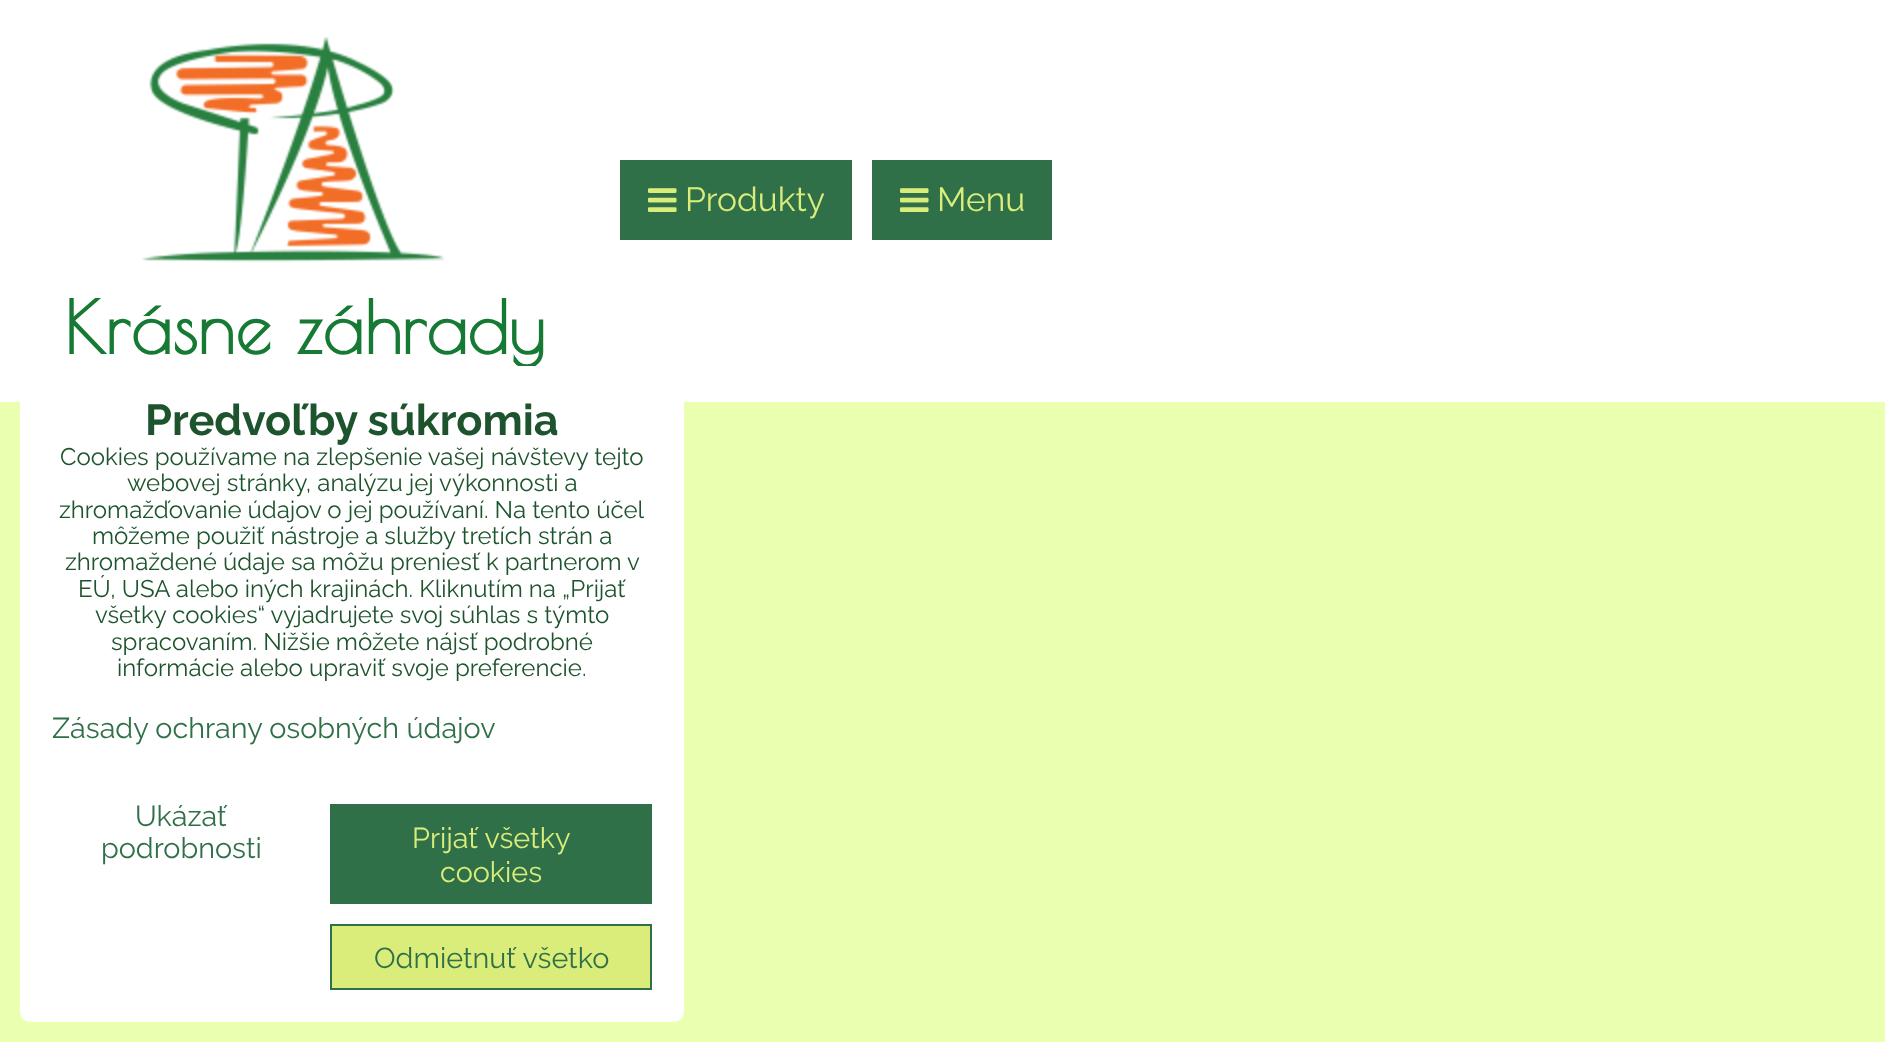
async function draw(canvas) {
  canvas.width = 1885;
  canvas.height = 1042;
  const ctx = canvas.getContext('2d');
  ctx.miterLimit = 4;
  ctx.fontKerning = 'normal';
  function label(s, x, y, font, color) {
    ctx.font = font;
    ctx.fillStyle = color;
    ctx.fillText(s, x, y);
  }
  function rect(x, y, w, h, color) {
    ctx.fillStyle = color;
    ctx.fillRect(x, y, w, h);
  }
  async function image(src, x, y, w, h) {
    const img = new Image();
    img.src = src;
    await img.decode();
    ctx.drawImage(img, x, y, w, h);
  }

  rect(0, 0, 1885, 1042, '#eaffb0');
  rect(0, 0, 1885, 402, '#fff');
  rect(620, 160, 232, 80, '#307048');
  await image('assets/img1.png', 648, 188, 29, 24);
  label('Produkty', 685, 211, '100 33.5px Raleway', '#daed7b');
  rect(872, 160, 180, 80, '#307048');
  await image('assets/img1.png', 900, 188, 29, 24);
  label('Menu', 937, 211, '100 33.5px Raleway', '#daed7b');
  await image('assets/img2.png', 142, 36, 303, 227);
  label('Krásne záhrady', 64, 354, 'bold 72px Poiret One', '#167a34');
  ctx.fillStyle = '#fff';
  ctx.beginPath();
  ctx.roundRect(21, 367, 662, 654, 9);
  ctx.fill();
  ctx.strokeStyle = '#fff';
  ctx.lineWidth = 2;
  ctx.stroke();
  label('Predvoľby súkromia', 145, 435, '100 43.25px "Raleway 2"', '#1e542d');
  label('Cookies používame na zlepšenie vašej návštevy tejto', 60, 465, '100 24px Raleway', '#1e542d');
  label('webovej stránky, analýzu jej výkonnosti a', 127, 491, '100 24px Raleway', '#1e542d');
  label('zhromažďovanie údajov o jej používaní. Na tento účel', 59, 518, '100 24px Raleway', '#1e542d');
  label('môžeme použiť nástroje a služby tretích strán a', 92, 544, '100 24px Raleway', '#1e542d');
  label('zhromaždené údaje sa môžu preniesť k partnerom v', 65, 570, '100 24px Raleway', '#1e542d');
  label('EÚ, USA alebo iných krajinách. Kliknutím na „Prijať', 78, 597, '100 24px Raleway', '#1e542d');
  label('všetky cookies“ vyjadrujete svoj súhlas s týmto', 95, 623, '100 24px Raleway', '#1e542d');
  label('spracovaním. Nižšie môžete nájsť podrobné', 111, 650, '100 24px Raleway', '#1e542d');
  label('informácie alebo upraviť svoje preferencie.', 117, 676, '100 24px Raleway', '#1e542d');
  label('Zásady ochrany osobných údajov', 52, 738, '100 28.75px Raleway', '#307048');
  label('Ukázať', 135, 826, '100 28.75px Raleway', '#307048');
  label('podrobnosti', 101, 858, '100 28.75px Raleway', '#307048');
  rect(330, 804, 322, 100, '#307048');
  label('Prijať všetky', 412, 848, '100 28.75px Raleway', '#daed7b');
  label('cookies', 440, 882, '100 28.75px Raleway', '#daed7b');
  ctx.beginPath();
  ctx.rect(331, 925, 320, 64);
  ctx.fill();
  ctx.strokeStyle = '#307048';
  ctx.stroke();
  label('Odmietnuť všetko', 374, 968, '100 28.75px Raleway', '#307048');
}

draw(document.querySelector('canvas'));
